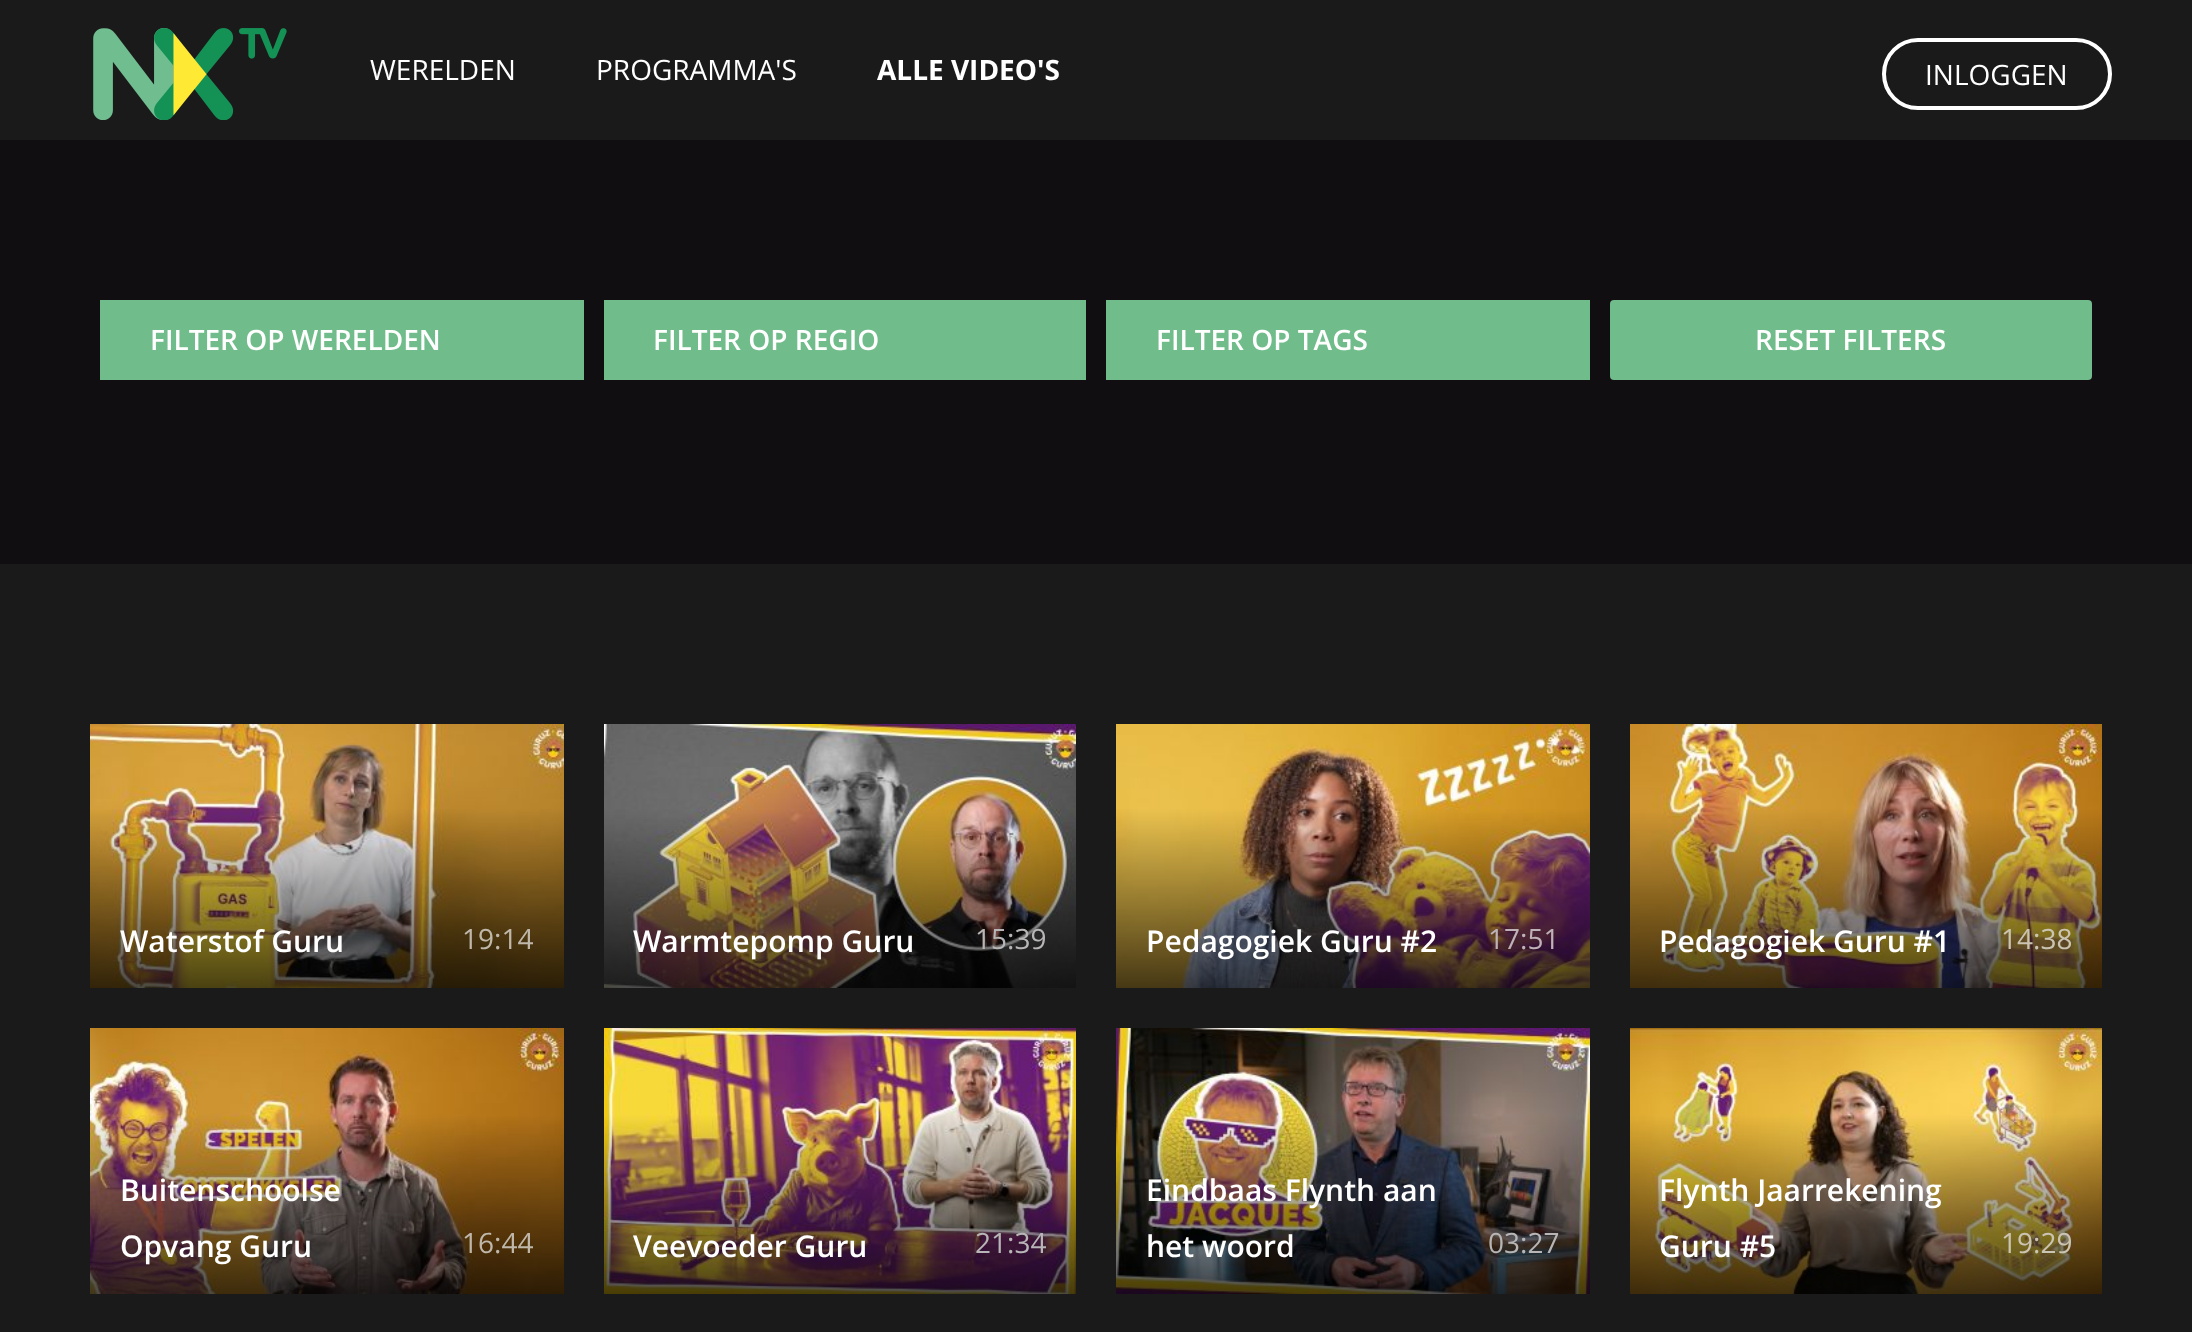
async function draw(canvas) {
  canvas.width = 2192;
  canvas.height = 1332;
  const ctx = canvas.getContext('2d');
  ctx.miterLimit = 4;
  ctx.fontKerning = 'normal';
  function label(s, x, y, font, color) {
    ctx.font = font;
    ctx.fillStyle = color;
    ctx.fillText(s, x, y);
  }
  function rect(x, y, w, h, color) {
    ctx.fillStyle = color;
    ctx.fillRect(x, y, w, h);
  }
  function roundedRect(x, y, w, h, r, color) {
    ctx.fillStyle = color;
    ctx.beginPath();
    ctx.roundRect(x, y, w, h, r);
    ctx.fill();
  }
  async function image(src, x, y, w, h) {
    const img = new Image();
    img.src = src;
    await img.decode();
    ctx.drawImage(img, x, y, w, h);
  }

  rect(0, 0, 2192, 1332, '#1b1a1b');
  await image('assets/img1.png', 93, 28, 194, 92);
  label('WERELDEN', 370, 80, '28px Open Sans', '#fff');
  label('PROGRAMMA\'S', 596, 80, '28px Open Sans', '#fff');
  label('ALLE VIDEO\'S', 877, 80, 'bold 28px Open Sans', '#fff');
  ctx.beginPath();
  ctx.roundRect(1884, 40, 226, 68, 34);
  ctx.strokeStyle = '#fff';
  ctx.lineWidth = 4;
  ctx.stroke();
  label('INLOGGEN', 1925, 85, '28px Open Sans', '#fff');
  rect(0, 140, 2192, 424, '#100e11');
  rect(100, 300, 484, 80, '#71bc8b');
  label('FILTER OP WERELDEN', 150, 350, '600 28px Open Sans', '#fff');
  rect(604, 300, 482, 80, '#71bc8b');
  label('FILTER OP REGIO', 653, 350, '600 28px Open Sans', '#fff');
  rect(1106, 300, 484, 80, '#71bc8b');
  label('FILTER OP TAGS', 1156, 350, '600 28px Open Sans', '#fff');
  roundedRect(1610, 300, 482, 80, 4, '#71bc8b');
  label('RESET FILTERS', 1755, 350, '600 28px Open Sans', '#fff');
  await image('assets/img2.png', 90, 724, 474, 264);
  label('Waterstof Guru', 120, 952, '600 30px Open Sans', '#fff');
  label('19:14', 462, 949, '28px Open Sans', '#bfb8aa');
  await image('assets/img3.png', 604, 724, 472, 264);
  label('Warmtepomp Guru', 633, 952, '600 30px Open Sans', '#fff');
  label('15:39', 975, 949, '28px Open Sans', '#b7b5b5');
  await image('assets/img4.png', 1116, 724, 474, 264);
  label('Pedagogiek Guru #2', 1146, 952, '600 30px Open Sans', '#fff');
  label('17:51', 1488, 949, '28px Open Sans', '#bfb2b7');
  await image('assets/img5.png', 1630, 724, 472, 264);
  label('Pedagogiek Guru #1', 1659, 952, '600 30px Open Sans', '#fff');
  label('14:38', 2001, 949, '28px Open Sans', '#cbc4b2');
  await image('assets/img6.png', 90, 1028, 474, 266);
  label('Buitenschoolse', 120, 1201, '600 30px Open Sans', '#fff');
  label('Opvang Guru', 120, 1257, '600 30px Open Sans', '#fff');
  label('16:44', 462, 1253, '28px Open Sans', '#bfb8aa');
  await image('assets/img7.png', 604, 1028, 472, 266);
  label('Veevoeder Guru', 633, 1257, '600 30px Open Sans', '#fff');
  label('21:34', 975, 1253, '28px Open Sans', '#b7b5b5');
  await image('assets/img8.png', 1116, 1028, 474, 266);
  label('Eindbaas Flynth aan', 1146, 1201, '600 30px Open Sans', '#fff');
  label('het woord', 1146, 1257, '600 30px Open Sans', '#fff');
  label('03:27', 1488, 1253, '28px Open Sans', '#b7b5b5');
  await image('assets/img9.png', 1630, 1028, 472, 266);
  label('Flynth Jaarrekening', 1659, 1201, '600 30px Open Sans', '#fff');
  label('Guru #5', 1659, 1257, '600 30px Open Sans', '#fff');
  label('19:29', 2001, 1253, '28px Open Sans', '#cbc4b2');
}

draw(document.querySelector('canvas'));
